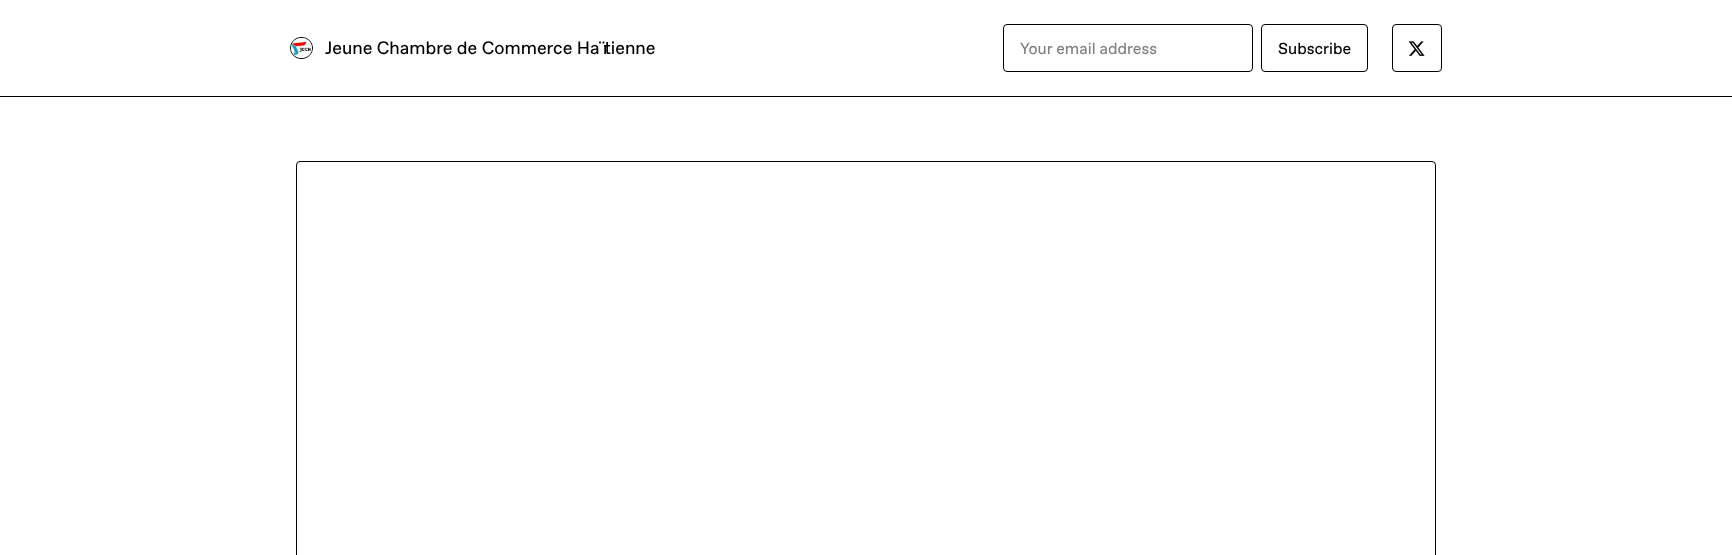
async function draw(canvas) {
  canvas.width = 1732;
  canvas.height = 555;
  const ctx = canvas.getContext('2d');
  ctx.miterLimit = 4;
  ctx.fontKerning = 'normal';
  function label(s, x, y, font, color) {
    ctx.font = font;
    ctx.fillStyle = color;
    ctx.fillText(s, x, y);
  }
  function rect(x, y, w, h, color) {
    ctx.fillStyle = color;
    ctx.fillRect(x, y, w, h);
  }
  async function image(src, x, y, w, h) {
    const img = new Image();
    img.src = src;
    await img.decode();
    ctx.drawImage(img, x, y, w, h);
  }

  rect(0, 0, 1732, 555, '#fff');
  rect(0, 96, 1732, 1, '#000');
  ctx.beginPath();
  ctx.roundRect(290.5, 37.5, 22, 21, 10.5);
  ctx.strokeStyle = '#000';
  ctx.stroke();
  await image('assets/img1.png', 291, 38, 21, 20);
  label('Jeune Chambre de Commerce Haïtienne', 325, 54, '18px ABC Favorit', '#000');
  ctx.beginPath();
  ctx.roundRect(1003.5, 24.5, 249, 47, 3.5);
  ctx.stroke();
  label('Your email address', 1020, 54, '16px ABC Favorit', '#808080');
  ctx.beginPath();
  ctx.roundRect(1261.5, 24.5, 106, 47, 3.5);
  ctx.stroke();
  label('Subscribe', 1278, 54, '16px ABC Favorit', '#000');
  ctx.beginPath();
  ctx.roundRect(1392.5, 24.5, 49, 47, 3.5);
  ctx.stroke();
  await image('assets/img2.png', 1408, 41, 17, 15);
  ctx.beginPath();
  ctx.roundRect(296.5, 161.5, 1139, 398, 3.5);
  ctx.stroke();
}

draw(document.querySelector('canvas'));
